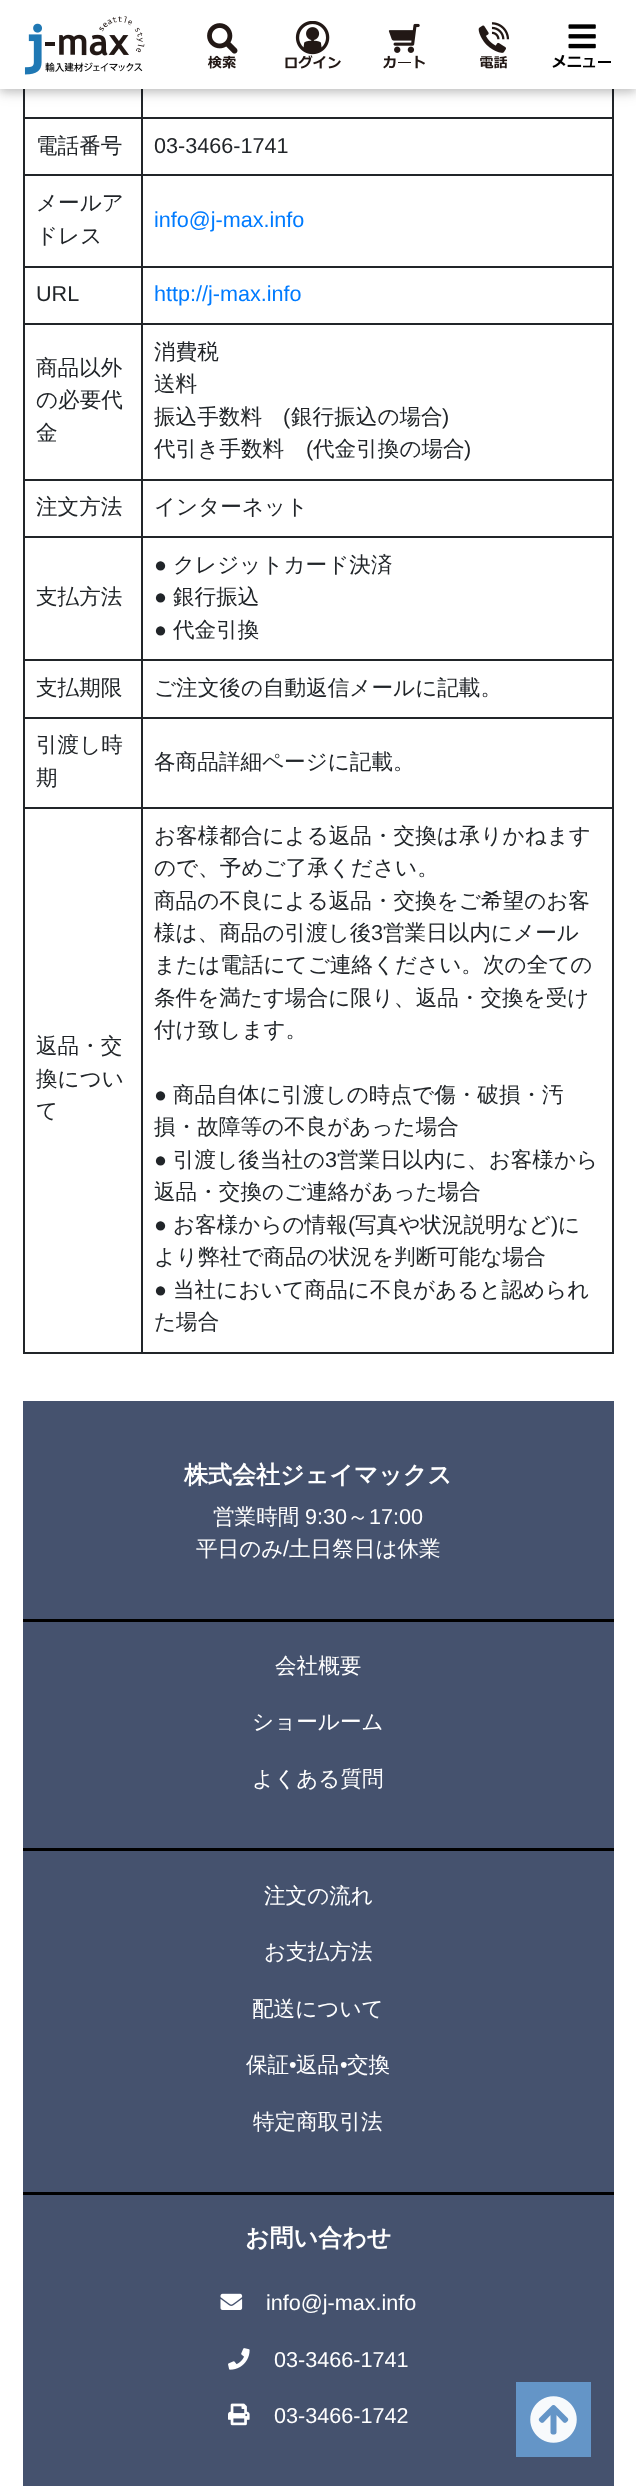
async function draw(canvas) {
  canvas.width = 636;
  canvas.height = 2486;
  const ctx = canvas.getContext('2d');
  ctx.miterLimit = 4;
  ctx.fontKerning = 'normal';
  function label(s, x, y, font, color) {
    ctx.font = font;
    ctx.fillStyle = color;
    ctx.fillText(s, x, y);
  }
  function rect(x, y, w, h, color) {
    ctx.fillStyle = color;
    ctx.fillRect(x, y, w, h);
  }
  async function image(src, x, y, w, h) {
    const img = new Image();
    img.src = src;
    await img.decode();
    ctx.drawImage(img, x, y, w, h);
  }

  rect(0, 0, 636, 2486, '#fff');
  rect(23, 89, 2, 1264, '#212529');
  rect(612, 89, 2, 1264, '#212529');
  rect(141, 1352, 473, 2, '#212529');
  rect(141, 807, 2, 546, '#212529');
  rect(141, 807, 473, 2, '#212529');
  rect(141, 717, 2, 92, '#212529');
  rect(141, 717, 473, 2, '#212529');
  rect(141, 659, 2, 60, '#212529');
  rect(141, 659, 473, 2, '#212529');
  rect(141, 536, 2, 124, '#212529');
  rect(141, 536, 473, 2, '#212529');
  rect(141, 479, 2, 58, '#212529');
  rect(141, 479, 473, 2, '#212529');
  rect(141, 323, 2, 157, '#212529');
  rect(141, 323, 473, 2, '#212529');
  rect(141, 266, 2, 58, '#212529');
  rect(141, 266, 473, 2, '#212529');
  rect(141, 174, 2, 93, '#212529');
  rect(141, 174, 473, 2, '#212529');
  rect(141, 117, 2, 59, '#212529');
  rect(141, 117, 473, 2, '#212529');
  rect(141, 89, 2, 30, '#212529');
  ctx.fillStyle = '#0000001f';
  ctx.filter = 'blur(7.5px)';
  ctx.beginPath();
  ctx.rect(0, 3, 636, 89);
  ctx.fill();
  ctx.filter = 'none';
  ctx.fillStyle = '#00000029';
  ctx.filter = 'blur(4px)';
  ctx.beginPath();
  ctx.rect(0, 3, 636, 89);
  ctx.fill();
  ctx.filter = 'none';
  rect(0, 0, 636, 89, '#fff');
  await image('assets/img1.png', 24, 16, 121, 59);
  await image('assets/img2.png', 207, 23, 31, 46);
  await image('assets/img3.png', 285, 21, 56, 48);
  await image('assets/img4.png', 383, 23, 42, 46);
  await image('assets/img5.png', 478, 22, 32, 47);
  await image('assets/img6.png', 568, 24, 28, 25);
  await image('assets/img7.png', 552, 55, 59, 13);
  rect(23, 117, 120, 2, '#212529');
  rect(23, 174, 120, 2, '#212529');
  label('電話番号', 36, 153, '500 21.6px WenQuanYi Zen Hei', '#212529');
  label('03-3466-1741', 154, 153, '21.6px Liberation Sans', '#212529');
  rect(23, 266, 120, 2, '#212529');
  label('メールア', 36, 210, '500 21.6px WenQuanYi Zen Hei', '#212529');
  label('ドレス', 36, 243, '500 21.6px WenQuanYi Zen Hei', '#212529');
  label('info@j-max.info', 154, 227, '21.6px Liberation Sans', '#007bff');
  rect(23, 323, 120, 2, '#212529');
  label('URL', 36, 301, '21.6px Liberation Sans', '#212529');
  label('http://j-max.info', 154, 301, '21.6px Liberation Sans', '#007bff');
  rect(23, 479, 120, 2, '#212529');
  label('商品以外', 36, 375, '500 21.6px WenQuanYi Zen Hei', '#212529');
  label('の必要代', 36, 407, '500 21.6px WenQuanYi Zen Hei', '#212529');
  label('金', 36, 440, '500 21.6px WenQuanYi Zen Hei', '#212529');
  label('消費税', 154, 359, '500 21.6px WenQuanYi Zen Hei', '#212529');
  label('送料', 154, 391, '500 21.6px WenQuanYi Zen Hei', '#212529');
  label('振込手数料', 154, 424, '500 21.6px WenQuanYi Zen Hei', '#212529');
  label('(', 283, 424, '21.6px Liberation Sans', '#212529');
  label('銀行振込の場合', 291, 424, '500 21.6px WenQuanYi Zen Hei', '#212529');
  label(')', 442, 424, '21.6px Liberation Sans', '#212529');
  label('代引き手数料', 154, 456, '500 21.6px WenQuanYi Zen Hei', '#212529');
  label('(', 306, 456, '21.6px Liberation Sans', '#212529');
  label('代金引換の場合', 313, 456, '500 21.6px WenQuanYi Zen Hei', '#212529');
  label(')', 464, 456, '21.6px Liberation Sans', '#212529');
  rect(23, 536, 120, 2, '#212529');
  label('注文方法', 36, 514, '500 21.6px WenQuanYi Zen Hei', '#212529');
  label('インターネット', 154, 514, '500 21.6px WenQuanYi Zen Hei', '#212529');
  rect(23, 659, 120, 2, '#212529');
  label('支払方法', 36, 604, '500 21.6px WenQuanYi Zen Hei', '#212529');
  label('●', 154, 572, '21.6px Liberation Sans', '#212529');
  label('クレジットカード決済', 173, 572, '500 21.6px WenQuanYi Zen Hei', '#212529');
  label('●', 154, 604, '21.6px Liberation Sans', '#212529');
  label('銀行振込', 173, 604, '500 21.6px WenQuanYi Zen Hei', '#212529');
  label('●', 154, 637, '21.6px Liberation Sans', '#212529');
  label('代金引換', 173, 637, '500 21.6px WenQuanYi Zen Hei', '#212529');
  rect(23, 717, 120, 2, '#212529');
  label('支払期限', 36, 695, '500 21.6px WenQuanYi Zen Hei', '#212529');
  label('ご注文後の自動返信メールに記載。', 154, 695, '500 21.6px WenQuanYi Zen Hei', '#212529');
  rect(23, 807, 120, 2, '#212529');
  label('引渡し時', 36, 752, '500 21.6px WenQuanYi Zen Hei', '#212529');
  label('期', 36, 785, '500 21.6px WenQuanYi Zen Hei', '#212529');
  label('各商品詳細ページに記載。', 154, 769, '500 21.6px WenQuanYi Zen Hei', '#212529');
  rect(23, 1352, 120, 2, '#212529');
  label('返品・交', 36, 1053, '500 21.6px WenQuanYi Zen Hei', '#212529');
  label('換につい', 36, 1086, '500 21.6px WenQuanYi Zen Hei', '#212529');
  label('て', 36, 1118, '500 21.6px WenQuanYi Zen Hei', '#212529');
  label('お客様都合による返品・交換は承りかねます', 154, 843, '500 21.6px WenQuanYi Zen Hei', '#212529');
  label('ので、予めご了承ください。', 154, 875, '500 21.6px WenQuanYi Zen Hei', '#212529');
  label('商品の不良による返品・交換をご希望のお客', 154, 908, '500 21.6px WenQuanYi Zen Hei', '#212529');
  label('様は、商品の引渡し後', 154, 940, '500 21.6px WenQuanYi Zen Hei', '#212529');
  label('3', 371, 940, '21.6px Liberation Sans', '#212529');
  label('営業日以内にメール', 383, 940, '500 21.6px WenQuanYi Zen Hei', '#212529');
  label('または電話にてご連絡ください。次の全ての', 154, 972, '500 21.6px WenQuanYi Zen Hei', '#212529');
  label('条件を満たす場合に限り、返品・交換を受け', 154, 1005, '500 21.6px WenQuanYi Zen Hei', '#212529');
  label('付け致します。', 154, 1037, '500 21.6px WenQuanYi Zen Hei', '#212529');
  label('●', 154, 1102, '21.6px Liberation Sans', '#212529');
  label('商品自体に引渡しの時点で傷・破損・汚', 173, 1102, '500 21.6px WenQuanYi Zen Hei', '#212529');
  label('損・故障等の不良があった場合', 154, 1134, '500 21.6px WenQuanYi Zen Hei', '#212529');
  label('●', 154, 1167, '21.6px Liberation Sans', '#212529');
  label('引渡し後当社の', 173, 1167, '500 21.6px WenQuanYi Zen Hei', '#212529');
  label('3', 325, 1167, '21.6px Liberation Sans', '#212529');
  label('営業日以内に、お客様から', 337, 1167, '500 21.6px WenQuanYi Zen Hei', '#212529');
  label('返品・交換のご連絡があった場合', 154, 1199, '500 21.6px WenQuanYi Zen Hei', '#212529');
  label('●', 154, 1232, '21.6px Liberation Sans', '#212529');
  label('お客様からの情報', 173, 1232, '500 21.6px WenQuanYi Zen Hei', '#212529');
  label('(', 348, 1232, '21.6px Liberation Sans', '#212529');
  label('写真や状況説明など', 355, 1232, '500 21.6px WenQuanYi Zen Hei', '#212529');
  label(')', 551, 1232, '21.6px Liberation Sans', '#212529');
  label('に', 558, 1232, '500 21.6px WenQuanYi Zen Hei', '#212529');
  label('より弊社で商品の状況を判断可能な場合', 154, 1264, '500 21.6px WenQuanYi Zen Hei', '#212529');
  label('●', 154, 1297, '21.6px Liberation Sans', '#212529');
  label('当社において商品に不良があると認められ', 173, 1297, '500 21.6px WenQuanYi Zen Hei', '#212529');
  label('た場合', 154, 1329, '500 21.6px WenQuanYi Zen Hei', '#212529');
  rect(23, 1401, 591, 1085, '#45526e');
  label('株式会社ジェイマックス', 184, 1483, 'bold 24px WenQuanYi Zen Hei', '#fff');
  label('営業時間', 213, 1524, '500 21.6px WenQuanYi Zen Hei', '#fff');
  label('9:30', 305, 1524, '21.6px Liberation Sans', '#fff');
  label('～', 347, 1524, '500 21.6px WenQuanYi Zen Hei', '#fff');
  label('17:00', 369, 1524, '21.6px Liberation Sans', '#fff');
  label('平日のみ', 196, 1556, '500 21.6px WenQuanYi Zen Hei', '#fff');
  label('/', 283, 1556, '21.6px Liberation Sans', '#fff');
  label('土日祭日は休業', 289, 1556, '500 21.6px WenQuanYi Zen Hei', '#fff');
  rect(23, 1619, 591, 3, '#000');
  label('会社概要', 275, 1673, '500 21.6px WenQuanYi Zen Hei', '#fff');
  label('ショールーム', 252, 1729, '500 21.6px WenQuanYi Zen Hei', '#fff');
  label('よくある質問', 252, 1786, '500 21.6px WenQuanYi Zen Hei', '#fff');
  rect(23, 1848, 591, 3, '#000');
  label('注文の流れ', 264, 1903, '500 21.6px WenQuanYi Zen Hei', '#fff');
  label('お支払方法', 264, 1959, '500 21.6px WenQuanYi Zen Hei', '#fff');
  label('配送について', 252, 2016, '500 21.6px WenQuanYi Zen Hei', '#fff');
  label('保証', 246, 2072, '500 21.6px WenQuanYi Zen Hei', '#fff');
  label('•', 289, 2072, '21.6px Liberation Sans', '#fff');
  label('返品', 296, 2072, '500 21.6px WenQuanYi Zen Hei', '#fff');
  label('•', 340, 2072, '21.6px Liberation Sans', '#fff');
  label('交換', 347, 2072, '500 21.6px WenQuanYi Zen Hei', '#fff');
  label('特定商取引法', 253, 2129, '500 21.6px WenQuanYi Zen Hei', '#fff');
  rect(23, 2192, 591, 3, '#000');
  label('お問い合わせ', 245, 2246, 'bold 24px WenQuanYi Zen Hei', '#fff');
  await image('assets/img8.png', 220, 2293, 23, 17);
  label('info@j-max.info', 266, 2310, '21.6px Liberation Sans', '#fff');
  await image('assets/img9.png', 228, 2348, 22, 22);
  label('03-3466-1741', 274, 2367, '21.6px Liberation Sans', '#fff');
  await image('assets/img10.png', 228, 2403, 22, 23);
  label('03-3466-1742', 274, 2423, '21.6px Liberation Sans', '#fff');
  rect(516, 2382, 75, 75, '#6495c7');
  await image('assets/img11.png', 530, 2396, 47, 47);
}

draw(document.querySelector('canvas'));
